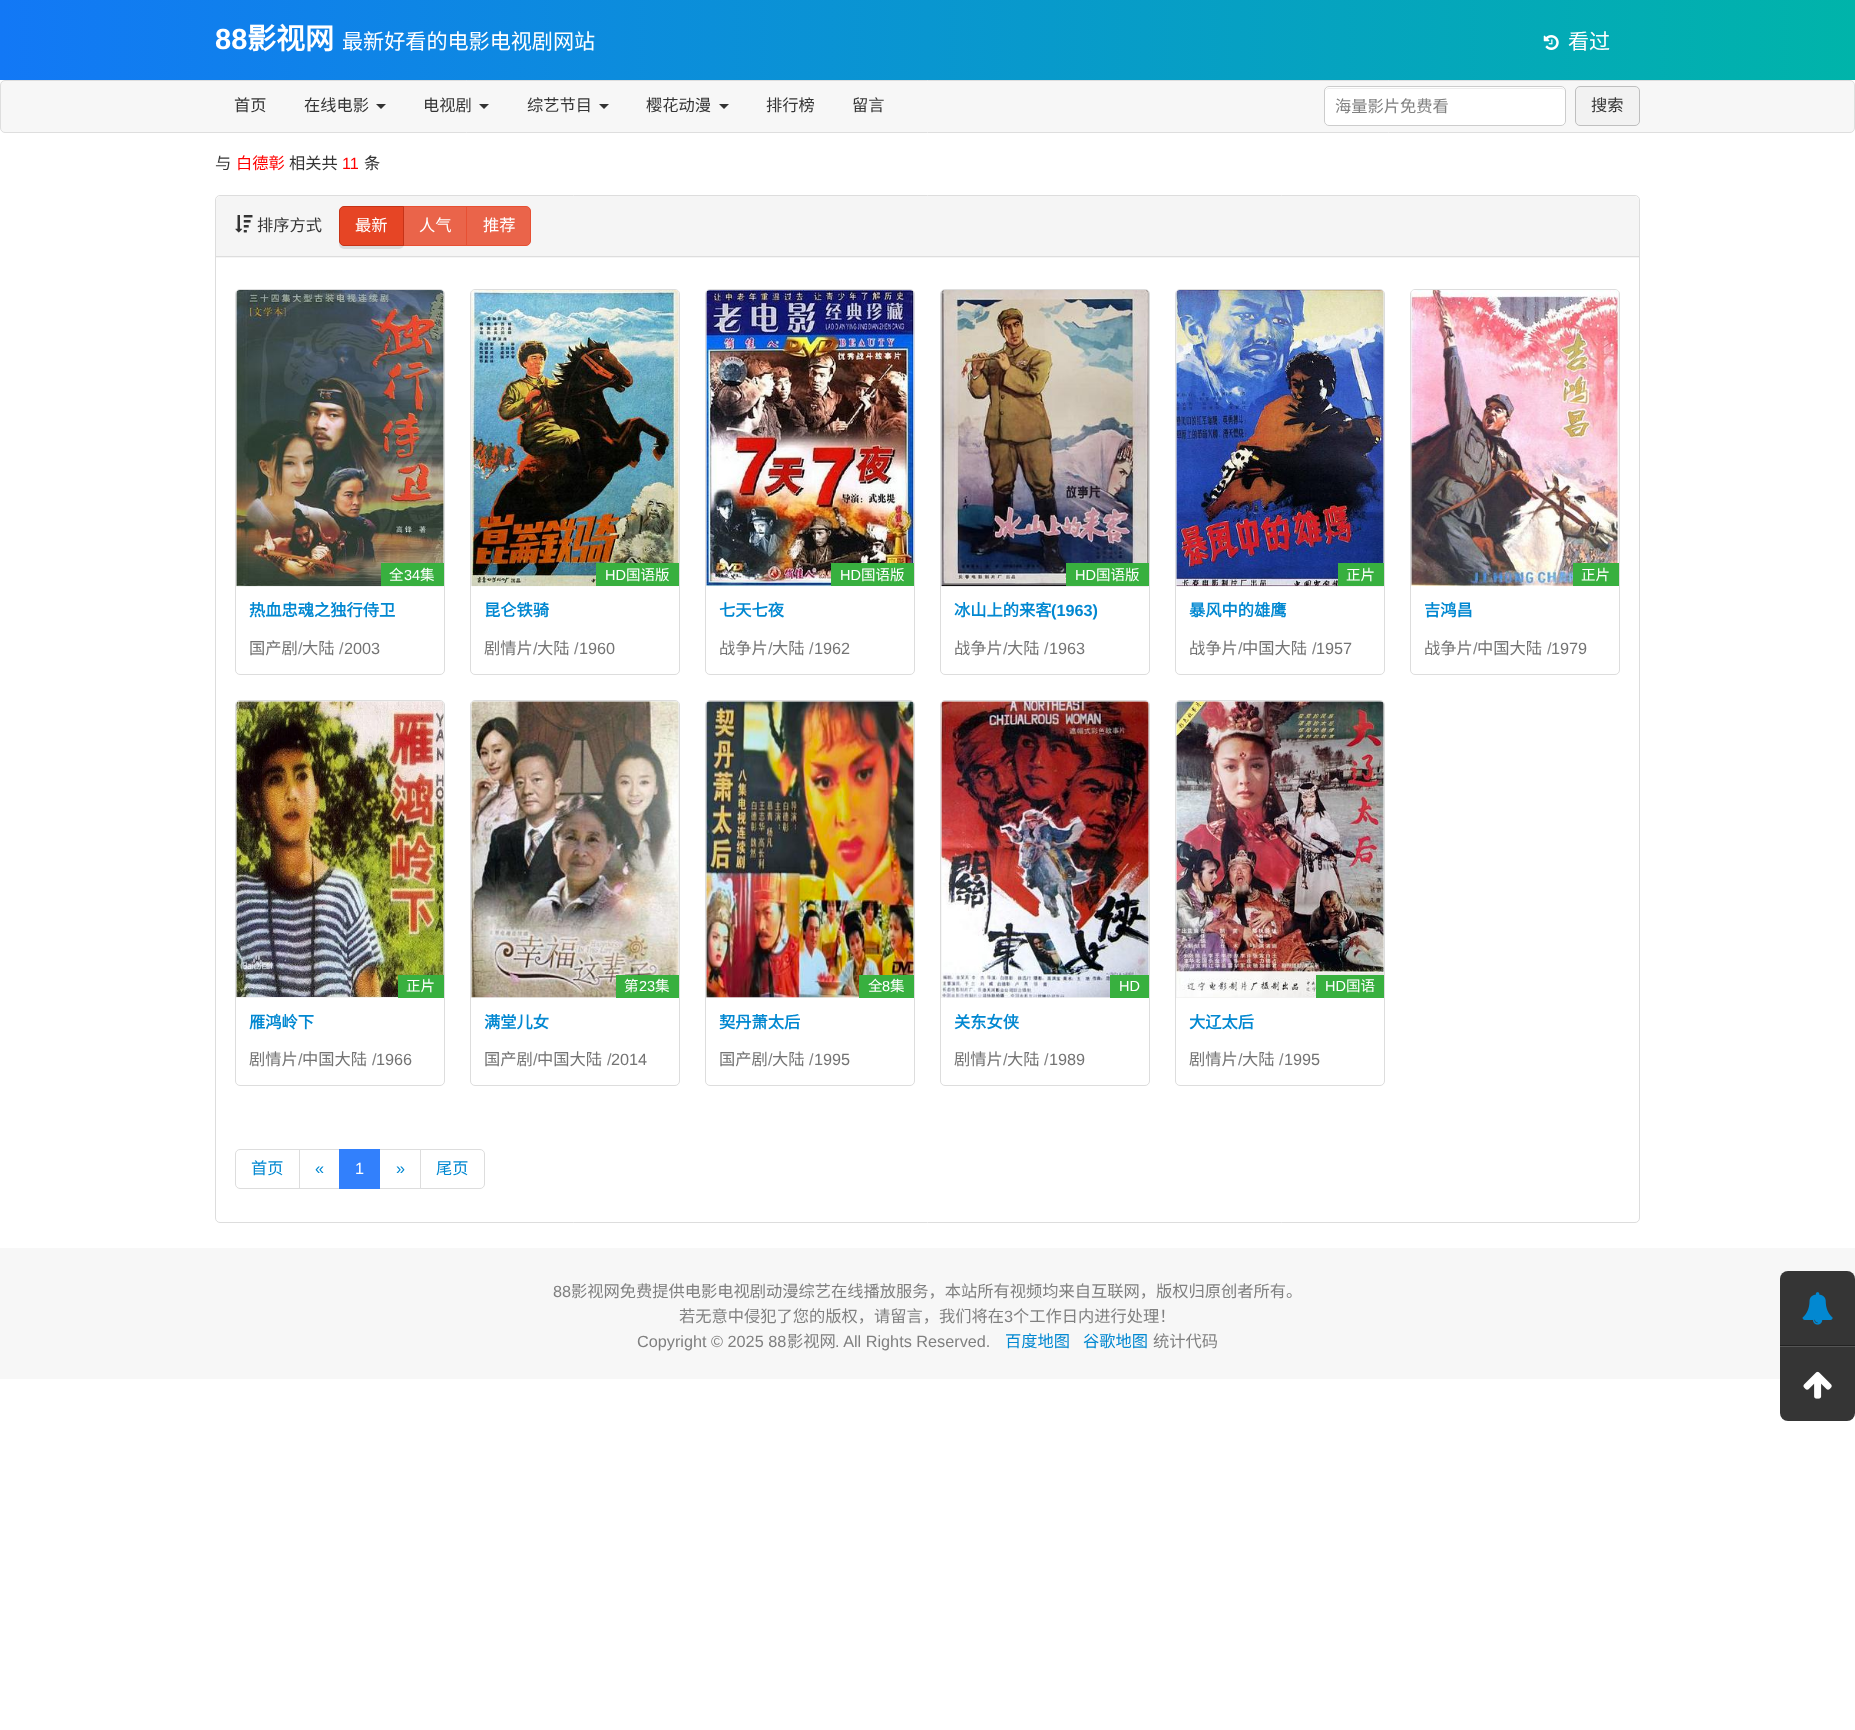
async function draw(canvas) {
  canvas.width = 1855;
  canvas.height = 1730;
  const ctx = canvas.getContext('2d');
  ctx.miterLimit = 4;
  ctx.fontKerning = 'normal';
  function label(s, x, y, font, color) {
    ctx.font = font;
    ctx.fillStyle = color;
    ctx.fillText(s, x, y);
  }
  function rect(x, y, w, h, color) {
    ctx.fillStyle = color;
    ctx.fillRect(x, y, w, h);
  }
  function roundedRect(x, y, w, h, r, color) {
    ctx.fillStyle = color;
    ctx.beginPath();
    ctx.roundRect(x, y, w, h, r);
    ctx.fill();
  }
  async function image(src, x, y, w, h) {
    const img = new Image();
    img.src = src;
    await img.decode();
    ctx.drawImage(img, x, y, w, h);
  }
  let gradient, path;

  rect(0, 0, 1855, 1730, '#fff');
  gradient = ctx.createLinearGradient(0, 40, 1855, 40);
  gradient.addColorStop(0, '#1278f6');
  gradient.addColorStop(1, '#00b4aa');
  ctx.fillStyle = gradient;
  ctx.fillRect(0, 0, 1855, 80);
  label('88', 215, 49, 'bold 29px Liberation Sans', '#fff');
  label('影视网', 247, 49, 'bold 29px Noto Sans CJK SC', '#fff');
  label('最新好看的电影电视剧网站', 342, 49, '21.1px Noto Sans CJK SC', '#fff');
  await image('assets/img1.png', 1543, 35, 16, 15);
  label('看过', 1568, 49, '21.1px Noto Sans CJK SC', '#fff');
  ctx.fillStyle = '#f7f7f7';
  ctx.beginPath();
  ctx.roundRect(0.5, 80.5, 1854, 52, 4.5);
  ctx.fill();
  ctx.strokeStyle = '#dedede';
  ctx.stroke();
  label('首页', 234, 111, '16.25px Noto Sans CJK SC', '#353535');
  label('在线电影', 304, 111, '16.25px Noto Sans CJK SC', '#353535');
  ctx.fillStyle = '#333';
  path = new Path2D('M376 104H386L381 109Z');
  ctx.fill(path);
  label('电视剧', 423, 111, '16.25px Noto Sans CJK SC', '#353535');
  ctx.fillStyle = '#333';
  path = new Path2D('M479 104H489L484 109Z');
  ctx.fill(path);
  label('综艺节目', 527, 111, '16.25px Noto Sans CJK SC', '#353535');
  ctx.fillStyle = '#333';
  path = new Path2D('M599 104H609L604 109Z');
  ctx.fill(path);
  label('樱花动漫', 646, 111, '16.25px Noto Sans CJK SC', '#353535');
  ctx.fillStyle = '#333';
  path = new Path2D('M719 104H729L724 109Z');
  ctx.fill(path);
  label('排行榜', 766, 111, '16.25px Noto Sans CJK SC', '#353535');
  label('留言', 852, 111, '16.25px Noto Sans CJK SC', '#353535');
  roundedRect(1324, 86, 242, 40, 5, '#fff');
  ctx.fillStyle = '#ececec';
  path = new Path2D('M1329 89H1561C1563 89 1565 90 1565 92C1565 90 1563 88 1561 88H1329C1327 88 1325 90 1325 92C1325 90 1327 89 1329 89Z');
  ctx.fill(path);
  ctx.beginPath();
  ctx.roundRect(1324.5, 86.5, 241, 39, 4.5);
  ctx.strokeStyle = '#ccc';
  ctx.stroke();
  label('海量影片免费看', 1335, 112, '16.25px Noto Sans CJK SC', '#808080');
  ctx.fillStyle = '#f2f2f2';
  ctx.beginPath();
  ctx.roundRect(1575.5, 86.5, 64, 39, 4.5);
  ctx.fill();
  ctx.strokeStyle = '#bfbfbf';
  ctx.stroke();
  label('搜索', 1591, 111, '16.25px Noto Sans CJK SC', '#353535');
  label('与', 215, 169, '16.25px Noto Sans CJK SC', '#353535');
  label('白德彰', 236, 169, '16.25px Noto Sans CJK SC', '#f00');
  label('相关共', 289, 169, '16.25px Noto Sans CJK SC', '#353535');
  label('11', 342, 169, '16.25px Liberation Sans', '#f00');
  label('条', 364, 169, '16.25px Noto Sans CJK SC', '#353535');
  ctx.beginPath();
  ctx.roundRect(215.5, 195.5, 1424, 1027, 4.5);
  ctx.strokeStyle = '#ddd';
  ctx.stroke();
  ctx.fillStyle = '#f5f5f5';
  ctx.beginPath();
  ctx.roundRect(216, 196, 1423, 62, [5, 5, 0, 0]);
  ctx.fill();
  rect(216, 256, 1423, 1, '#ddd');
  await image('assets/img2.png', 235, 215, 18, 18);
  label('排序方式', 257, 231, '16.25px Noto Sans CJK SC', '#353535');
  rect(404, 207, 62, 38, '#ea644a');
  ctx.strokeStyle = '#e75033';
  ctx.strokeRect(403.5, 206.5, 64, 39);
  ctx.fillStyle = '#0000001a';
  ctx.filter = 'blur(0.5px)';
  ctx.beginPath();
  ctx.roundRect(339, 209, 65, 40, 5);
  ctx.fill();
  ctx.filter = 'none';
  ctx.fillStyle = '#e64525';
  ctx.beginPath();
  ctx.roundRect(339.5, 206.5, 64, 39, [4.5, 0, 0, 4.5]);
  ctx.fill();
  ctx.strokeStyle = '#c63317';
  ctx.stroke();
  label('最新', 355, 231, '16.25px Noto Sans CJK SC', '#fff');
  label('人气', 419, 231, '16.25px Noto Sans CJK SC', '#fff');
  ctx.fillStyle = '#ea644a';
  ctx.beginPath();
  ctx.roundRect(466.5, 206.5, 64, 39, [0, 4.5, 4.5, 0]);
  ctx.fill();
  ctx.strokeStyle = '#e75033';
  ctx.stroke();
  label('推荐', 483, 231, '16.25px Noto Sans CJK SC', '#fff');
  ctx.beginPath();
  ctx.roundRect(235.5, 289.5, 209, 385, 4.5);
  ctx.strokeStyle = '#ddd';
  ctx.stroke();
  ctx.fillStyle = '#f1f1f1';
  ctx.beginPath();
  ctx.roundRect(236, 290, 208, 296, [4, 4, 0, 0]);
  ctx.fill();
  await image('assets/img3.png', 236, 290, 208, 297);
  rect(381, 563, 63, 23, '#38b03f');
  label('全', 389, 580, '14.5px Noto Sans CJK SC', '#fff');
  label('34', 404, 580, '14.5px Liberation Sans', '#fff');
  label('集', 420, 580, '14.5px Noto Sans CJK SC', '#fff');
  label('热血忠魂之独行侍卫', 249, 616, 'bold 16.25px Noto Sans CJK SC', '#0288d1');
  label('国产剧', 249, 654, '16.25px Noto Sans CJK SC', '#737373');
  label('/', 298, 654, '16.25px Liberation Sans', '#808080');
  label('大陆', 302, 654, '16.25px Noto Sans CJK SC', '#737373');
  label('/', 339, 654, '16.25px Liberation Sans', '#808080');
  label('2003', 344, 654, '16.25px Liberation Sans', '#737373');
  ctx.beginPath();
  ctx.roundRect(470.5, 289.5, 209, 385, 4.5);
  ctx.stroke();
  ctx.fillStyle = '#f1f1f1';
  ctx.beginPath();
  ctx.roundRect(471, 290, 208, 296, [4, 4, 0, 0]);
  ctx.fill();
  await image('assets/img4.png', 471, 290, 208, 297);
  rect(596, 563, 83, 23, '#38b03f');
  label('HD', 605, 580, '14.5px Liberation Sans', '#fff');
  label('国语版', 626, 580, '14.5px Noto Sans CJK SC', '#fff');
  label('昆仑铁骑', 484, 616, 'bold 16.25px Noto Sans CJK SC', '#0288d1');
  label('剧情片', 484, 654, '16.25px Noto Sans CJK SC', '#737373');
  label('/', 533, 654, '16.25px Liberation Sans', '#808080');
  label('大陆', 537, 654, '16.25px Noto Sans CJK SC', '#737373');
  label('/', 574, 654, '16.25px Liberation Sans', '#808080');
  label('1960', 579, 654, '16.25px Liberation Sans', '#737373');
  ctx.beginPath();
  ctx.roundRect(705.5, 289.5, 209, 385, 4.5);
  ctx.stroke();
  ctx.fillStyle = '#f1f1f1';
  ctx.beginPath();
  ctx.roundRect(706, 290, 208, 296, [4, 4, 0, 0]);
  ctx.fill();
  await image('assets/img5.png', 706, 290, 208, 297);
  rect(831, 563, 83, 23, '#38b03f');
  label('HD', 840, 580, '14.5px Liberation Sans', '#fff');
  label('国语版', 861, 580, '14.5px Noto Sans CJK SC', '#fff');
  label('七天七夜', 719, 616, 'bold 16.25px Noto Sans CJK SC', '#0288d1');
  label('战争片', 719, 654, '16.25px Noto Sans CJK SC', '#737373');
  label('/', 768, 654, '16.25px Liberation Sans', '#808080');
  label('大陆', 772, 654, '16.25px Noto Sans CJK SC', '#737373');
  label('/', 809, 654, '16.25px Liberation Sans', '#808080');
  label('1962', 814, 654, '16.25px Liberation Sans', '#737373');
  ctx.beginPath();
  ctx.roundRect(940.5, 289.5, 209, 385, 4.5);
  ctx.stroke();
  ctx.fillStyle = '#f1f1f1';
  ctx.beginPath();
  ctx.roundRect(941, 290, 208, 296, [4, 4, 0, 0]);
  ctx.fill();
  await image('assets/img6.png', 941, 290, 208, 297);
  rect(1066, 563, 83, 23, '#38b03f');
  label('HD', 1075, 580, '14.5px Liberation Sans', '#fff');
  label('国语版', 1096, 580, '14.5px Noto Sans CJK SC', '#fff');
  label('冰山上的来客', 954, 616, 'bold 16.25px Noto Sans CJK SC', '#0288d1');
  label('(1963)', 1051, 616, 'bold 16.25px Liberation Sans', '#0288d1');
  label('战争片', 954, 654, '16.25px Noto Sans CJK SC', '#737373');
  label('/', 1003, 654, '16.25px Liberation Sans', '#808080');
  label('大陆', 1007, 654, '16.25px Noto Sans CJK SC', '#737373');
  label('/', 1044, 654, '16.25px Liberation Sans', '#808080');
  label('1963', 1049, 654, '16.25px Liberation Sans', '#737373');
  ctx.beginPath();
  ctx.roundRect(1175.5, 289.5, 209, 385, 4.5);
  ctx.stroke();
  ctx.fillStyle = '#f1f1f1';
  ctx.beginPath();
  ctx.roundRect(1176, 290, 208, 296, [4, 4, 0, 0]);
  ctx.fill();
  await image('assets/img7.png', 1176, 290, 208, 297);
  rect(1338, 563, 46, 23, '#38b03f');
  label('正片', 1346, 580, '14.5px Noto Sans CJK SC', '#fff');
  label('暴风中的雄鹰', 1189, 616, 'bold 16.25px Noto Sans CJK SC', '#0288d1');
  label('战争片', 1189, 654, '16.25px Noto Sans CJK SC', '#737373');
  label('/', 1238, 654, '16.25px Liberation Sans', '#808080');
  label('中国大陆', 1242, 654, '16.25px Noto Sans CJK SC', '#737373');
  label('/', 1312, 654, '16.25px Liberation Sans', '#808080');
  label('1957', 1316, 654, '16.25px Liberation Sans', '#737373');
  ctx.beginPath();
  ctx.roundRect(1410.5, 289.5, 209, 385, 4.5);
  ctx.stroke();
  ctx.fillStyle = '#f1f1f1';
  ctx.beginPath();
  ctx.roundRect(1411, 290, 208, 296, [4, 4, 0, 0]);
  ctx.fill();
  await image('assets/img8.png', 1411, 290, 208, 297);
  rect(1573, 563, 46, 23, '#38b03f');
  label('正片', 1581, 580, '14.5px Noto Sans CJK SC', '#fff');
  label('吉鸿昌', 1424, 616, 'bold 16.25px Noto Sans CJK SC', '#0288d1');
  label('战争片', 1424, 654, '16.25px Noto Sans CJK SC', '#737373');
  label('/', 1473, 654, '16.25px Liberation Sans', '#808080');
  label('中国大陆', 1477, 654, '16.25px Noto Sans CJK SC', '#737373');
  label('/', 1547, 654, '16.25px Liberation Sans', '#808080');
  label('1979', 1551, 654, '16.25px Liberation Sans', '#737373');
  ctx.beginPath();
  ctx.roundRect(235.5, 700.5, 209, 385, 4.5);
  ctx.stroke();
  ctx.fillStyle = '#f1f1f1';
  ctx.beginPath();
  ctx.roundRect(236, 701, 208, 297, [4, 4, 0, 0]);
  ctx.fill();
  await image('assets/img9.png', 236, 701, 208, 297);
  rect(398, 975, 46, 23, '#38b03f');
  label('正片', 406, 991, '14.5px Noto Sans CJK SC', '#fff');
  label('雁鸿岭下', 249, 1028, 'bold 16.25px Noto Sans CJK SC', '#0288d1');
  label('剧情片', 249, 1065, '16.25px Noto Sans CJK SC', '#737373');
  label('/', 298, 1065, '16.25px Liberation Sans', '#808080');
  label('中国大陆', 302, 1065, '16.25px Noto Sans CJK SC', '#737373');
  label('/', 372, 1065, '16.25px Liberation Sans', '#808080');
  label('1966', 376, 1065, '16.25px Liberation Sans', '#737373');
  ctx.beginPath();
  ctx.roundRect(470.5, 700.5, 209, 385, 4.5);
  ctx.stroke();
  ctx.fillStyle = '#f1f1f1';
  ctx.beginPath();
  ctx.roundRect(471, 701, 208, 297, [4, 4, 0, 0]);
  ctx.fill();
  await image('assets/img10.png', 471, 701, 208, 297);
  rect(616, 975, 63, 23, '#38b03f');
  label('第', 624, 991, '14.5px Noto Sans CJK SC', '#fff');
  label('23', 639, 991, '14.5px Liberation Sans', '#fff');
  label('集', 655, 991, '14.5px Noto Sans CJK SC', '#fff');
  label('满堂儿女', 484, 1028, 'bold 16.25px Noto Sans CJK SC', '#0288d1');
  label('国产剧', 484, 1065, '16.25px Noto Sans CJK SC', '#737373');
  label('/', 533, 1065, '16.25px Liberation Sans', '#808080');
  label('中国大陆', 537, 1065, '16.25px Noto Sans CJK SC', '#737373');
  label('/', 607, 1065, '16.25px Liberation Sans', '#808080');
  label('2014', 611, 1065, '16.25px Liberation Sans', '#737373');
  ctx.beginPath();
  ctx.roundRect(705.5, 700.5, 209, 385, 4.5);
  ctx.stroke();
  ctx.fillStyle = '#f1f1f1';
  ctx.beginPath();
  ctx.roundRect(706, 701, 208, 297, [4, 4, 0, 0]);
  ctx.fill();
  await image('assets/img11.png', 706, 701, 208, 297);
  rect(859, 975, 55, 23, '#38b03f');
  label('全', 868, 991, '14.5px Noto Sans CJK SC', '#fff');
  label('8', 882, 991, '14.5px Liberation Sans', '#fff');
  label('集', 890, 991, '14.5px Noto Sans CJK SC', '#fff');
  label('契丹萧太后', 719, 1028, 'bold 16.25px Noto Sans CJK SC', '#0288d1');
  label('国产剧', 719, 1065, '16.25px Noto Sans CJK SC', '#737373');
  label('/', 768, 1065, '16.25px Liberation Sans', '#808080');
  label('大陆', 772, 1065, '16.25px Noto Sans CJK SC', '#737373');
  label('/', 809, 1065, '16.25px Liberation Sans', '#808080');
  label('1995', 814, 1065, '16.25px Liberation Sans', '#737373');
  ctx.beginPath();
  ctx.roundRect(940.5, 700.5, 209, 385, 4.5);
  ctx.stroke();
  ctx.fillStyle = '#f1f1f1';
  ctx.beginPath();
  ctx.roundRect(941, 701, 208, 297, [4, 4, 0, 0]);
  ctx.fill();
  await image('assets/img12.png', 941, 701, 208, 297);
  rect(1110, 975, 39, 23, '#38b03f');
  label('HD', 1119, 991, '14.5px Liberation Sans', '#fff');
  label('关东女侠', 954, 1028, 'bold 16.25px Noto Sans CJK SC', '#0288d1');
  label('剧情片', 954, 1065, '16.25px Noto Sans CJK SC', '#737373');
  label('/', 1003, 1065, '16.25px Liberation Sans', '#808080');
  label('大陆', 1007, 1065, '16.25px Noto Sans CJK SC', '#737373');
  label('/', 1044, 1065, '16.25px Liberation Sans', '#808080');
  label('1989', 1049, 1065, '16.25px Liberation Sans', '#737373');
  ctx.beginPath();
  ctx.roundRect(1175.5, 700.5, 209, 385, 4.5);
  ctx.stroke();
  ctx.fillStyle = '#f1f1f1';
  ctx.beginPath();
  ctx.roundRect(1176, 701, 208, 297, [4, 4, 0, 0]);
  ctx.fill();
  await image('assets/img13.png', 1176, 701, 208, 297);
  rect(1316, 975, 68, 23, '#38b03f');
  label('HD', 1325, 991, '14.5px Liberation Sans', '#fff');
  label('国语', 1346, 991, '14.5px Noto Sans CJK SC', '#fff');
  label('大辽太后', 1189, 1028, 'bold 16.25px Noto Sans CJK SC', '#0288d1');
  label('剧情片', 1189, 1065, '16.25px Noto Sans CJK SC', '#737373');
  label('/', 1238, 1065, '16.25px Liberation Sans', '#808080');
  label('大陆', 1242, 1065, '16.25px Noto Sans CJK SC', '#737373');
  label('/', 1279, 1065, '16.25px Liberation Sans', '#808080');
  label('1995', 1284, 1065, '16.25px Liberation Sans', '#737373');
  ctx.beginPath();
  ctx.roundRect(235.5, 1149.5, 64, 39, [4.5, 0, 0, 4.5]);
  ctx.stroke();
  label('首页', 251, 1174, '16.25px Noto Sans CJK SC', '#0288d1');
  ctx.strokeRect(299.5, 1149.5, 40, 39);
  label('«', 315, 1174, '16.25px Liberation Sans', '#0288d1');
  ctx.strokeRect(379.5, 1149.5, 41, 39);
  rect(339, 1149, 41, 40, '#3280fc');
  label('1', 355, 1174, '16.25px Liberation Sans', '#fff');
  label('»', 396, 1174, '16.25px Liberation Sans', '#0288d1');
  ctx.fillStyle = '#fff';
  ctx.beginPath();
  ctx.roundRect(420.5, 1149.5, 64, 39, [0, 4.5, 4.5, 0]);
  ctx.fill();
  ctx.stroke();
  label('尾页', 436, 1174, '16.25px Noto Sans CJK SC', '#0288d1');
  rect(0, 1248, 1855, 131, '#f7f7f7');
  label('88', 553, 1297, '16.25px Liberation Sans', '#808080');
  label('影视网免费提供电影电视剧动漫综艺在线播放服务，本站所有视频均来自互联网，版权归原创者所有。', 571, 1297, '16.25px Noto Sans CJK SC', '#808080');
  label('若无意中侵犯了您的版权，请留言，我们将在', 679, 1322, '16.25px Noto Sans CJK SC', '#808080');
  label('3', 1004, 1322, '16.25px Liberation Sans', '#808080');
  label('个工作日内进行处理！', 1013, 1322, '16.25px Noto Sans CJK SC', '#808080');
  label('Copyright © 2025 88', 637, 1347, '16.25px Liberation Sans', '#808080');
  label('影视网', 787, 1347, '16.25px Noto Sans CJK SC', '#808080');
  label('. All Rights Reserved.', 835, 1347, '16.25px Liberation Sans', '#808080');
  label('百度地图', 1005, 1347, '16.25px Noto Sans CJK SC', '#0288d1');
  label('谷歌地图', 1083, 1347, '16.25px Noto Sans CJK SC', '#0288d1');
  label('统计代码', 1153, 1347, '16.25px Noto Sans CJK SC', '#808080');
  ctx.fillStyle = '#353535';
  ctx.beginPath();
  ctx.roundRect(1780, 1271, 75, 75, [8, 8, 0, 0]);
  ctx.fill();
  rect(1780, 1345, 75, 1, '#222');
  await image('assets/img14.png', 1802, 1292, 31, 33);
  ctx.fillStyle = '#353535';
  ctx.beginPath();
  ctx.roundRect(1780, 1346, 75, 75, [0, 0, 8, 8]);
  ctx.fill();
  rect(1780, 1346, 75, 1, '#555');
  await image('assets/img15.png', 1803, 1371, 29, 28);
}

draw(document.querySelector('canvas'));
